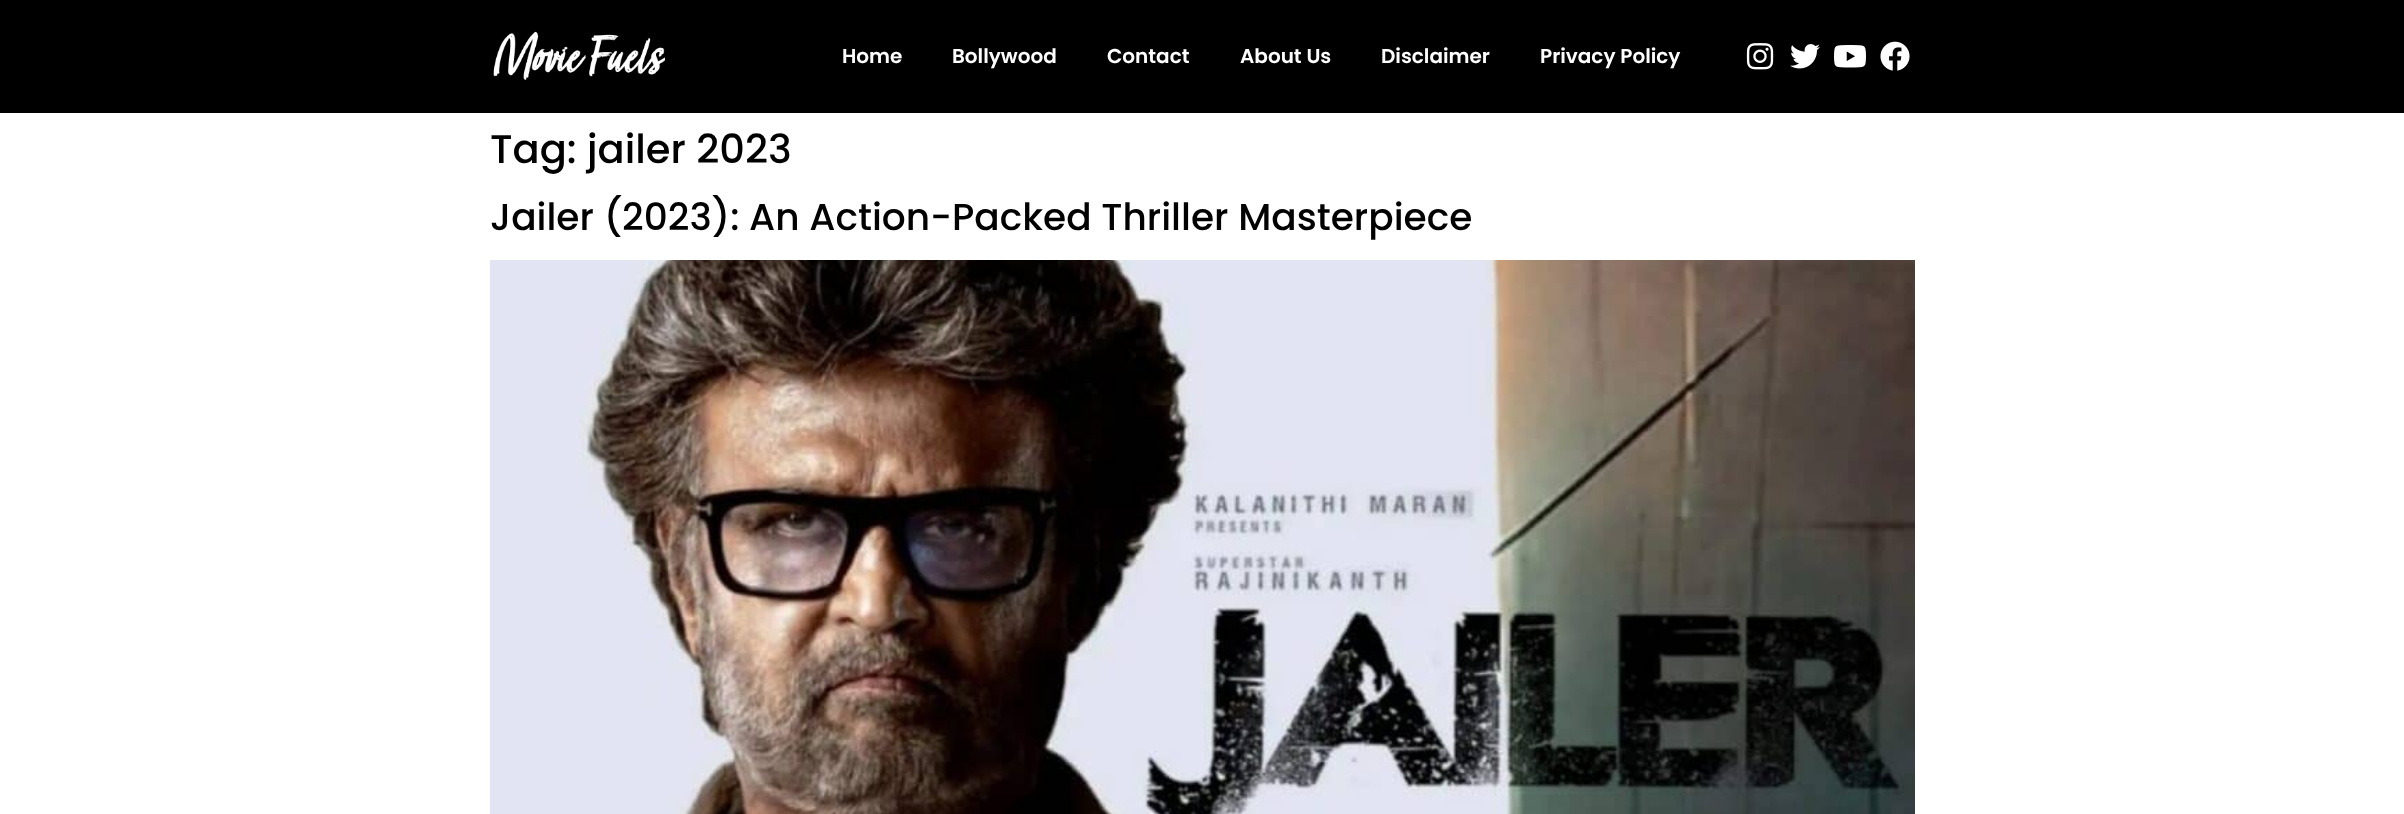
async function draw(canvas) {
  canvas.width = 2404;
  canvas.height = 814;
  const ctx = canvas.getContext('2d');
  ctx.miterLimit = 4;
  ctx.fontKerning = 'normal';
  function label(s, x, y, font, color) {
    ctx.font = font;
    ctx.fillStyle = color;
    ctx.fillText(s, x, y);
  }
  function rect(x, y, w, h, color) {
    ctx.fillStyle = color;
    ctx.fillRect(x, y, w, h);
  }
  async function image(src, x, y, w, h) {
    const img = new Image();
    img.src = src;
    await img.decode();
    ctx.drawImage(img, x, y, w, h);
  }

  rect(0, 0, 2404, 814, '#fff');
  rect(0, 0, 2404, 113, '#000');
  await image('assets/img1.png', 493, 31, 172, 49);
  label('Home', 842, 63, '600 20px Poppins', '#fff');
  label('Bollywood', 952, 63, '600 20px Poppins', '#fff');
  label('Contact', 1107, 63, '600 20px Poppins', '#fff');
  label('About Us', 1240, 63, '600 20px Poppins', '#fff');
  label('Disclaimer', 1381, 63, '600 20px Poppins', '#fff');
  label('Privacy Policy', 1540, 63, '600 20px Poppins', '#fff');
  await image('assets/img2.png', 1746, 43, 28, 27);
  await image('assets/img3.png', 1790, 44, 30, 25);
  await image('assets/img4.png', 1834, 45, 32, 23);
  await image('assets/img5.png', 1880, 41, 30, 30);
  label('Tag: jailer 2023', 490, 163, '500 40px Poppins', '#000');
  label('Jailer (2023): An Action-Packed Thriller Masterpiece', 490, 230, '500 37.5px Poppins', '#000');
  await image('assets/img6.png', 490, 260, 1425, 554);
}

draw(document.querySelector('canvas'));
